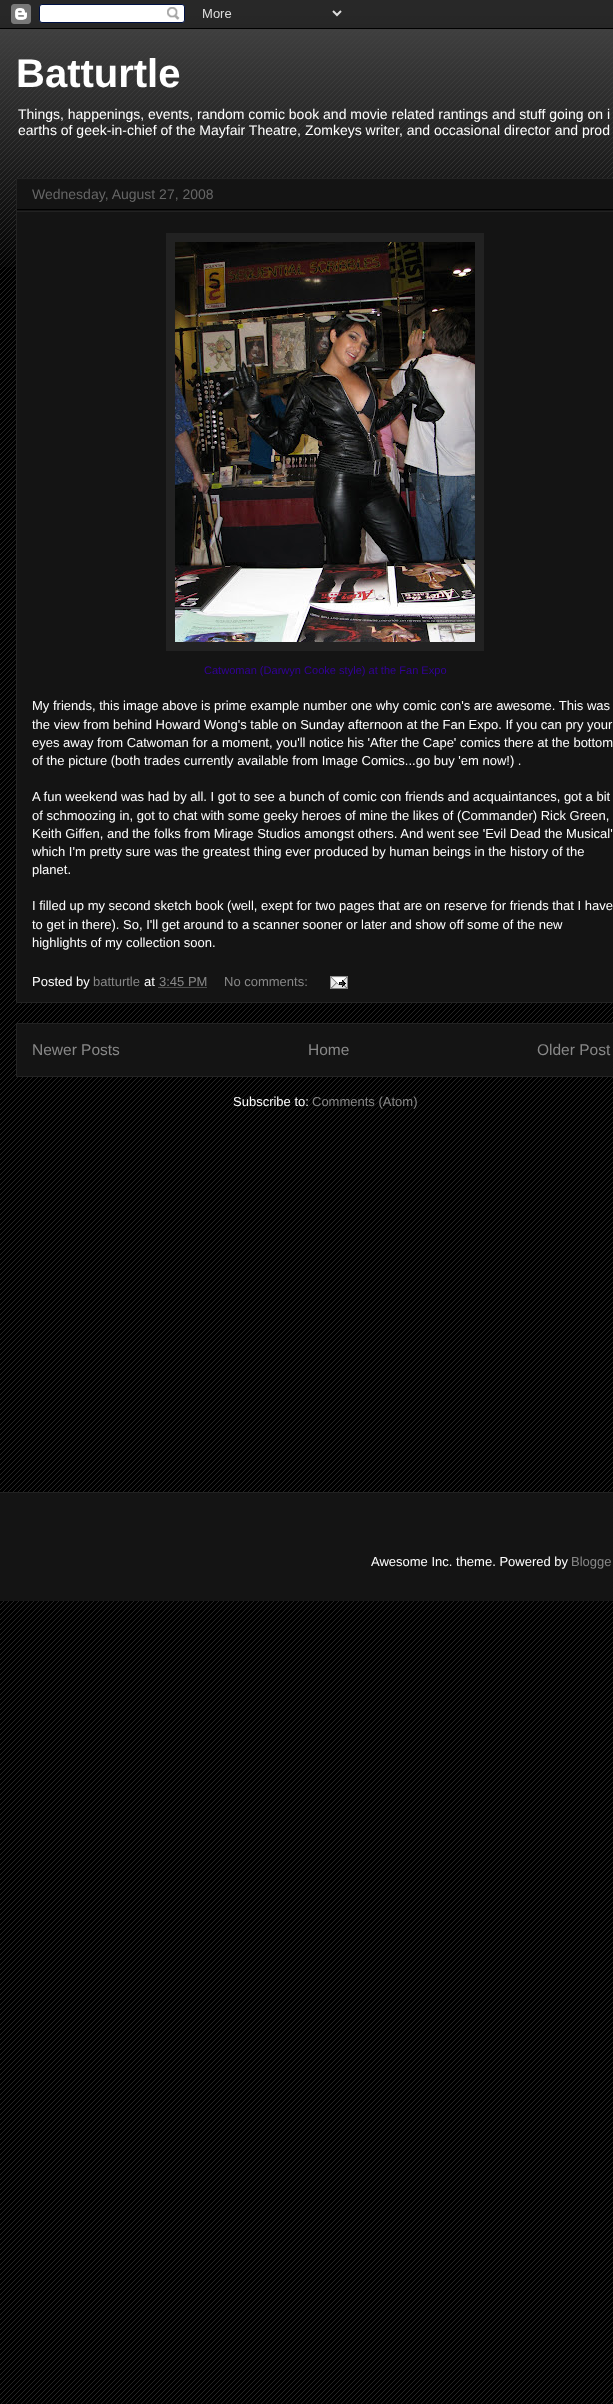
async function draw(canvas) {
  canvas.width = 613;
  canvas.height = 2404;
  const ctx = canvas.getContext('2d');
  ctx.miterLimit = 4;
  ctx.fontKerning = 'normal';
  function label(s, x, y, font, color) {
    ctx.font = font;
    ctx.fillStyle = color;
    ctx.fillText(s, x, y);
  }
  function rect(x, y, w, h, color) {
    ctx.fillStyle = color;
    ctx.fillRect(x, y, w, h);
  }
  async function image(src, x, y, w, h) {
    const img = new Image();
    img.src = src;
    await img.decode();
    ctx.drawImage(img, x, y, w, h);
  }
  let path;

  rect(0, 0, 613, 2404, '#000');
  await image('assets/img1.png', 0, 12, 613, 2392);
  await image('assets/img2.png', 0, 0, 613, 267);
  await image('assets/img3.png', 0, 0, 613, 29);
  label('Batturtle', 16, 87, 'bold 40px Liberation Sans', '#fff');
  label('Things, happenings, events, random comic book and movie related rantings and stuff going on i', 18, 119, '14px Liberation Sans', '#fff');
  label('earths of geek-in-chief of the Mayfair Theatre, Zomkeys writer, and occasional director and prod', 18, 135, '14px Liberation Sans', '#fff');
  ctx.fillStyle = '#141414';
  ctx.beginPath();
  ctx.rect(16.5, 178.5, 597, 824);
  ctx.fill();
  ctx.strokeStyle = '#222';
  ctx.stroke();
  rect(17, 209, 596, 1, '#000');
  label('Wednesday, August 27, 2008', 32, 199, '14px Liberation Sans', '#666');
  rect(17, 211, 596, 1, '#222');
  rect(166, 233, 318, 418, '#222');
  await image('assets/img4.png', 175, 242, 300, 400);
  label('Catwoman (Darwyn Cooke style) at the Fan Expo', 204, 674, '11.05px Liberation Sans', '#309');
  label('My friends, this image above is prime example number one why comic con\'s are awesome. This was', 32, 710, '13px Liberation Sans', '#fff');
  label('the view from behind Howard Wong\'s table on Sunday afternoon at the Fan Expo. If you can pry your', 32, 729, '13px Liberation Sans', '#fff');
  label('eyes away from Catwoman for a moment, you\'ll notice his \'After the Cape\' comics there at the bottom', 32, 747, '13px Liberation Sans', '#fff');
  label('of the picture (both trades currently available from Image Comics...go buy \'em now!) .', 32, 765, '13px Liberation Sans', '#fff');
  label('A fun weekend was had by all. I got to see a bunch of comic con friends and acquaintances, got a bit', 32, 801, '13px Liberation Sans', '#fff');
  label('of schmoozing in, got to chat with some geeky heroes of mine the likes of (Commander) Rick Green,', 32, 820, '13px Liberation Sans', '#fff');
  label('Keith Giffen, and the folks from Mirage Studios amongst others. And went see \'Evil Dead the Musical\'', 32, 838, '13px Liberation Sans', '#fff');
  label('which I\'m pretty sure was the greatest thing ever produced by human beings in the history of the', 32, 856, '13px Liberation Sans', '#fff');
  label('planet.', 32, 874, '13px Liberation Sans', '#fff');
  label('I filled up my second sketch book (well, exept for two pages that are on reserve for friends that I have', 32, 910, '13px Liberation Sans', '#fff');
  label('to get in there). So, I\'ll get around to a scanner sooner or later and show off some of the new', 32, 929, '13px Liberation Sans', '#fff');
  label('highlights of my collection soon.', 32, 947, '13px Liberation Sans', '#fff');
  label('Posted by', 32, 986, '13px Liberation Sans', '#fff');
  label('batturtle', 93, 986, '13px Liberation Sans', '#888');
  label('at', 144, 986, '13px Liberation Sans', '#fff');
  label('3:45 PM', 159, 986, '13px Liberation Sans', '#888');
  path = new Path2D('M158.5 987.5H207');
  ctx.strokeStyle = '#888';
  ctx.setLineDash([1, 1]);
  ctx.stroke(path);
  label('No comments:', 224, 986, '13px Liberation Sans', '#888');
  await image('assets/img5.png', 330, 976, 18, 13);
  ctx.fillStyle = '#141414';
  ctx.beginPath();
  ctx.rect(16.5, 1023.5, 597, 53);
  ctx.fill();
  ctx.strokeStyle = '#222';
  ctx.setLineDash([]);
  ctx.stroke();
  label('Newer Posts', 32, 1055, '15.5px Liberation Sans', '#888');
  label('Home', 308, 1055, '15.5px Liberation Sans', '#888');
  label('Older Post', 537, 1055, '15.5px Liberation Sans', '#888');
  label('Subscribe to:', 233, 1106, '13px Liberation Sans', '#fff');
  label('Comments (Atom)', 312, 1106, '13px Liberation Sans', '#888');
  rect(0, 1493, 613, 108, '#141414');
  rect(0, 1492, 613, 1, '#222');
  label('Awesome Inc. theme. Powered by', 371, 1566, '13px Liberation Sans', '#fff');
  label('Blogge', 571, 1566, '13px Liberation Sans', '#888');
}

draw(document.querySelector('canvas'));
